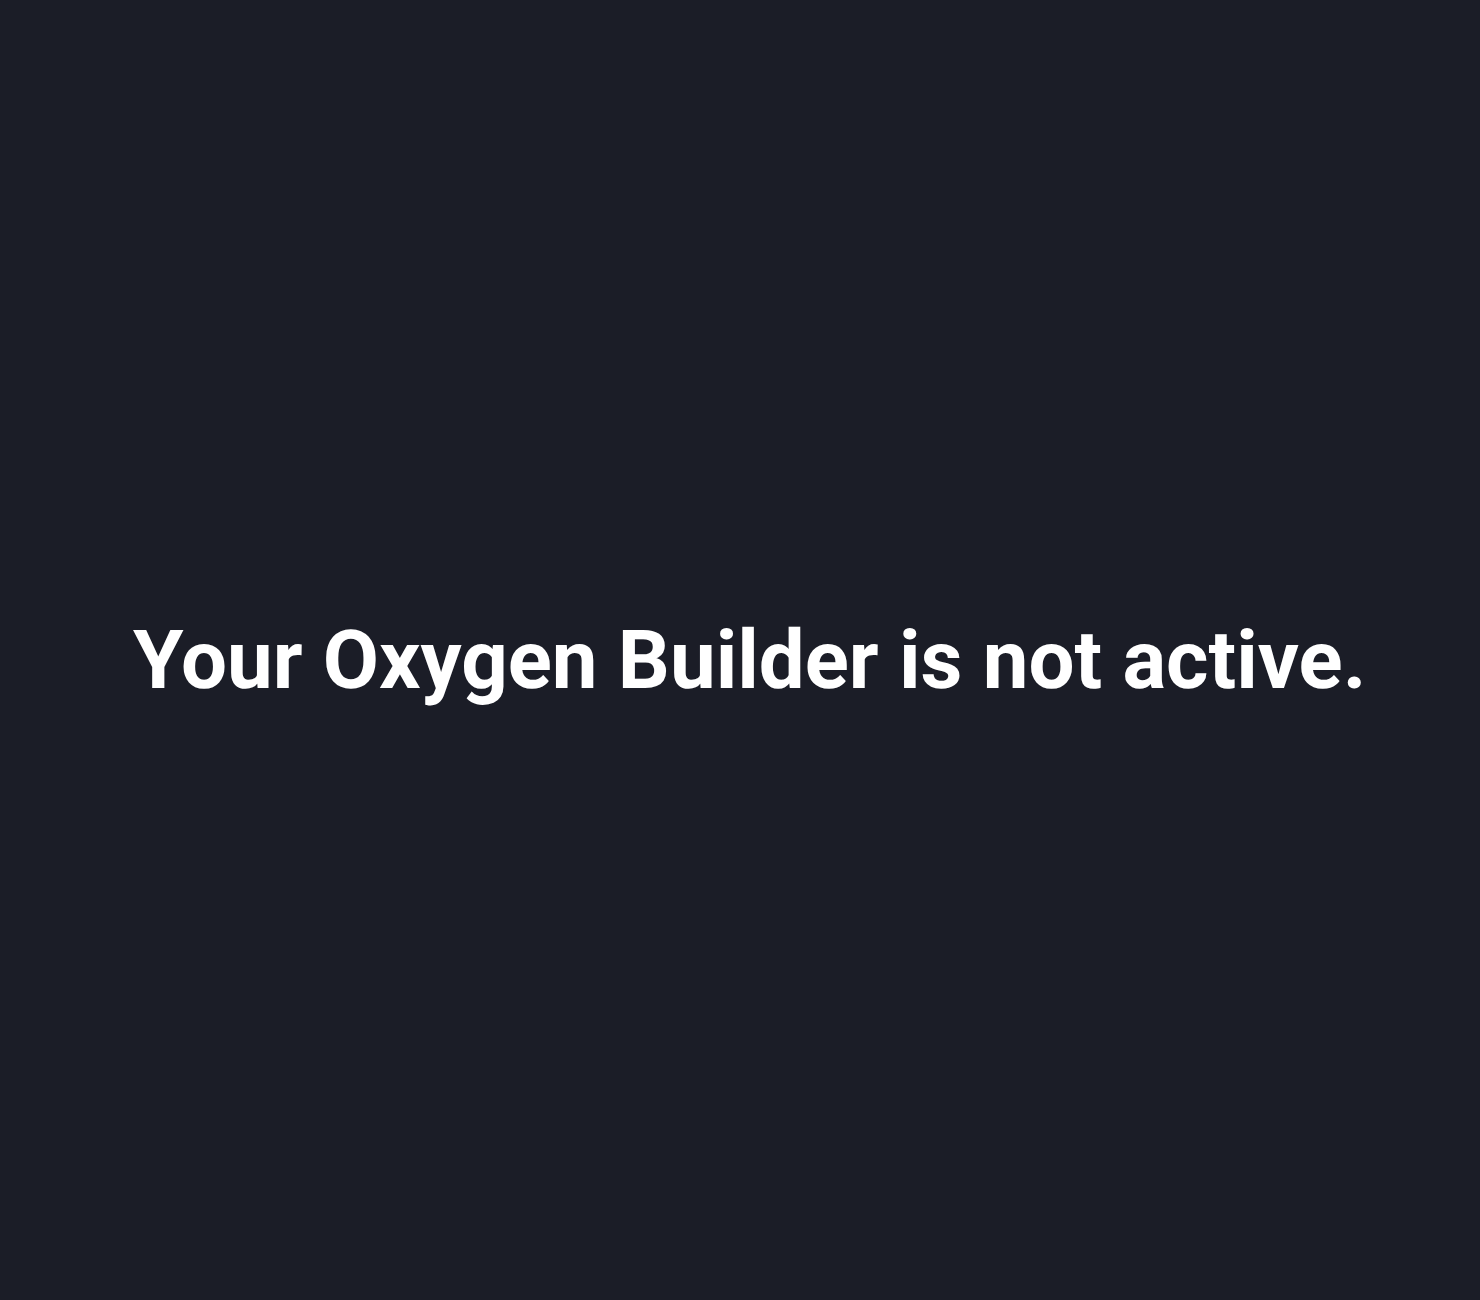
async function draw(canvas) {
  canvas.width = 1480;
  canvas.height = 1300;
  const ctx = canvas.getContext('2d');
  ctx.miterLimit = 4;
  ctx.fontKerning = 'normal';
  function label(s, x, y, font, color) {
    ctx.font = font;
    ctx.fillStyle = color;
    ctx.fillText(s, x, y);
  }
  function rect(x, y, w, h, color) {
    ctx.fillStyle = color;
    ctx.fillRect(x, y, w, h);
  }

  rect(0, 0, 1480, 1300, '#1b1d27');
  label('Your Oxygen Builder is not active.', 133, 688, 'bold 81.6px Roboto', '#fff');
}

draw(document.querySelector('canvas'));
